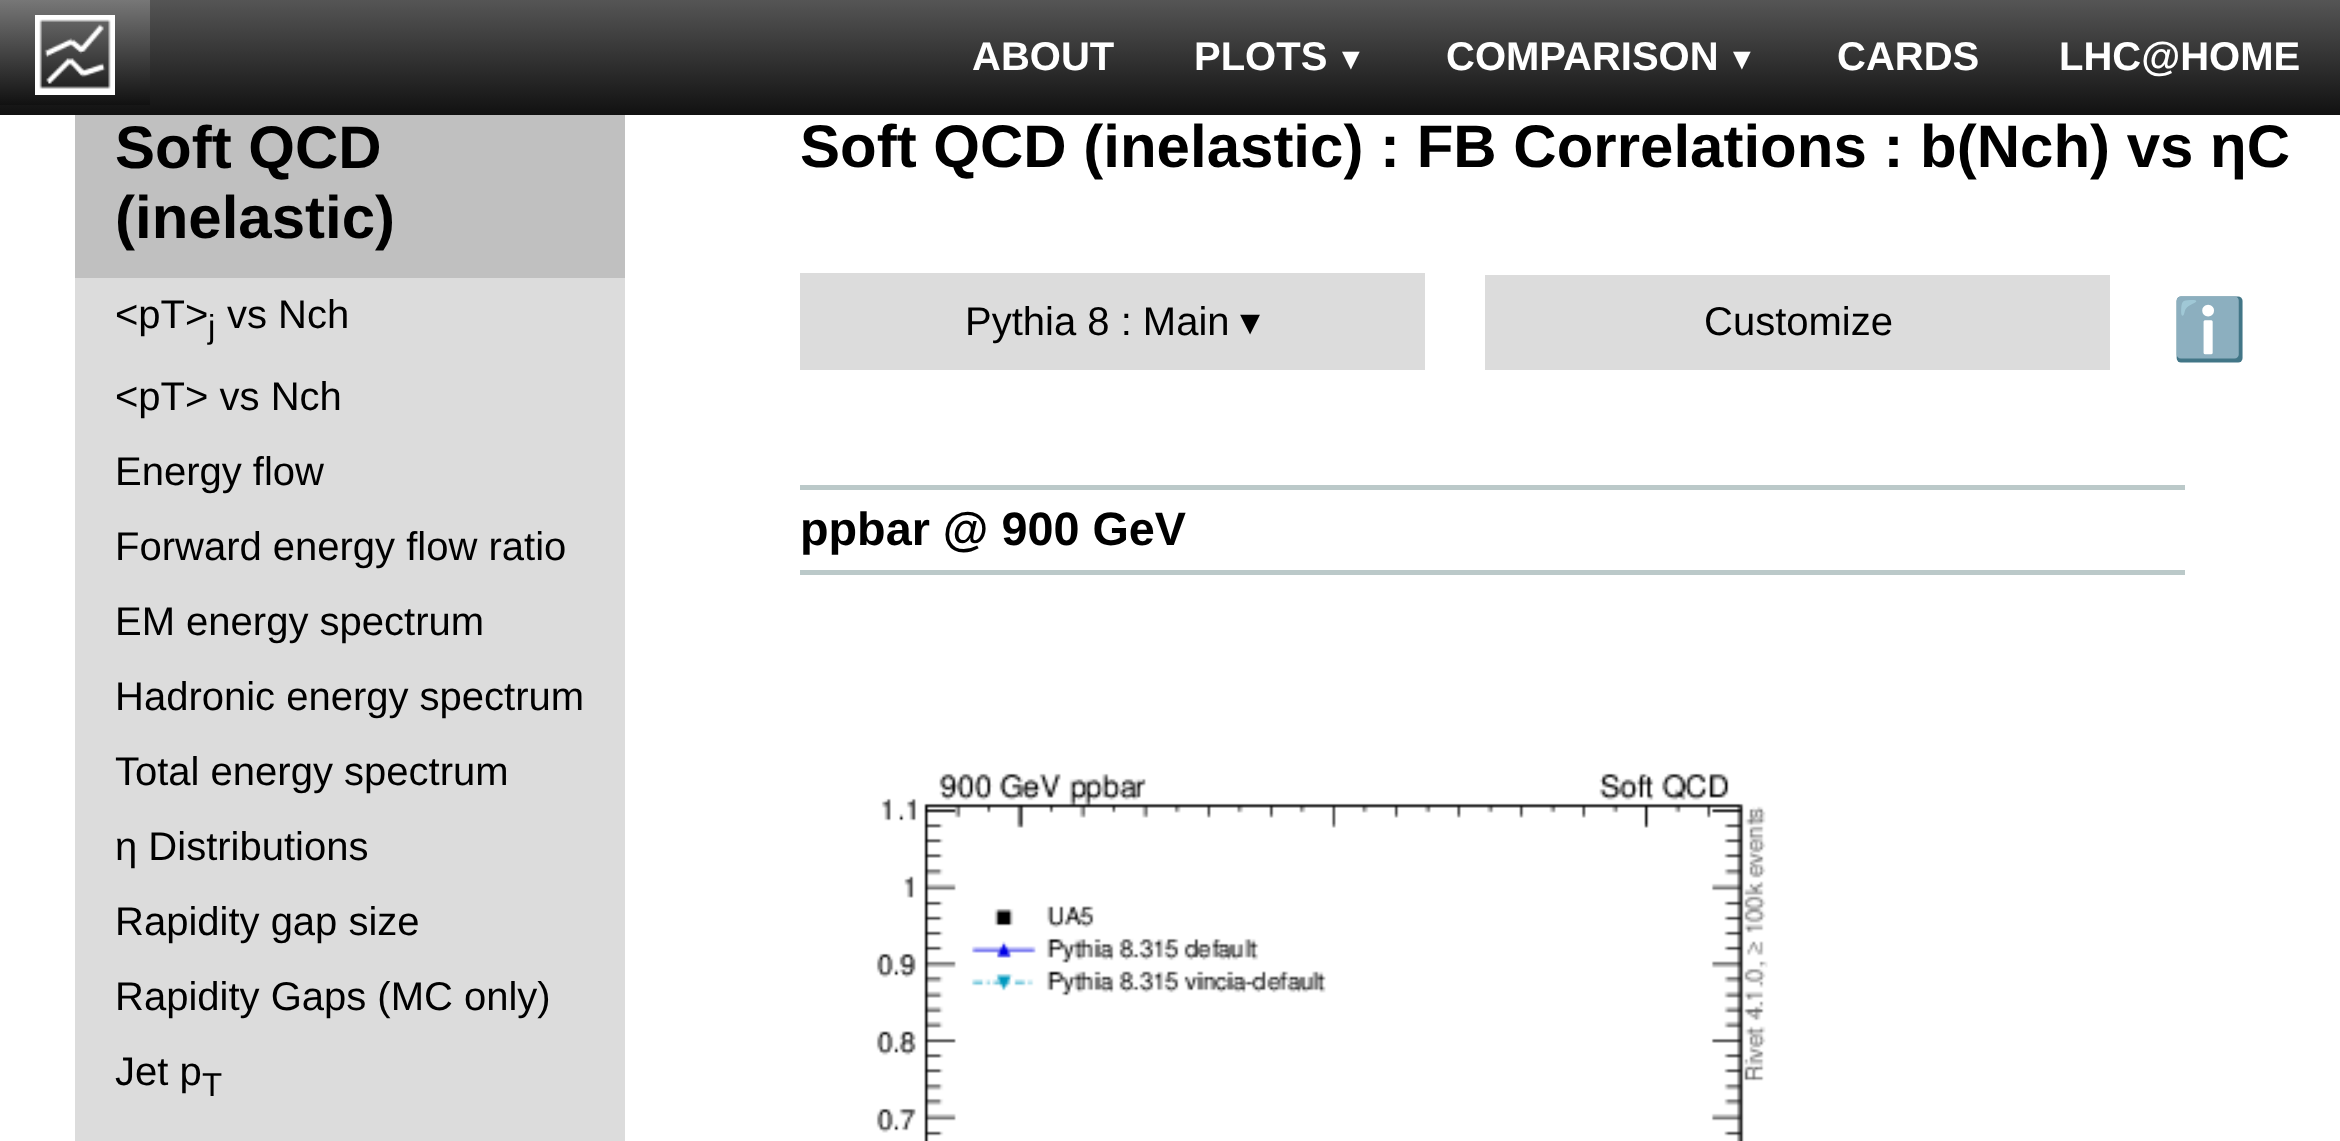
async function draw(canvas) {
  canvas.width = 2340;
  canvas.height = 1141;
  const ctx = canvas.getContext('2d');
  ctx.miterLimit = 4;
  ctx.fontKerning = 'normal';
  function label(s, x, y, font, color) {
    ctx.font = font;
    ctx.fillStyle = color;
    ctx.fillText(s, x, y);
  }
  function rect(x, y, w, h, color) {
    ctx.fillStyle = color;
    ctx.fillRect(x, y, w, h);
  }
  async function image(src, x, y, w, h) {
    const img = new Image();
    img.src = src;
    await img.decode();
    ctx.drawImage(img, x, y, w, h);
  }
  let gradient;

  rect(0, 0, 2340, 1141, '#fff');
  gradient = ctx.createLinearGradient(1170, 0, 1170, 115);
  gradient.addColorStop(0, '#555');
  gradient.addColorStop(1, '#111');
  ctx.fillStyle = gradient;
  ctx.fillRect(0, 0, 2340, 115);
  gradient = ctx.createLinearGradient(75, 0, 75, 105);
  gradient.addColorStop(0, '#777');
  gradient.addColorStop(1, '#111');
  ctx.fillStyle = gradient;
  ctx.fillRect(0, 0, 150, 105);
  await image('assets/img1.png', 35, 15, 80, 80);
  label('ABOUT', 972, 70, 'bold 40px Liberation Sans', '#fff');
  label('PLOTS', 1194, 70, 'bold 40px Liberation Sans', '#fff');
  label('▼', 1336, 69, 'bold 30px Liberation Sans', '#fff');
  label('COMPARISON', 1446, 70, 'bold 40px Liberation Sans', '#fff');
  label('▼', 1727, 69, 'bold 30px Liberation Sans', '#fff');
  label('CARDS', 1837, 70, 'bold 40px Liberation Sans', '#fff');
  label('LHC@HOME', 2059, 70, 'bold 40px Liberation Sans', '#fff');
  rect(75, 115, 550, 163, '#c0c0c0');
  label('Soft QCD', 115, 168, 'bold 60px Liberation Sans', '#000');
  label('(inelastic)', 115, 238, 'bold 60px Liberation Sans', '#000');
  rect(75, 278, 550, 863, '#dcdcdc');
  label('<pT>', 115, 328, '40px Liberation Sans', '#000');
  label('j', 208, 338, '33px Liberation Sans', '#000');
  label('vs Nch', 227, 328, '40px Liberation Sans', '#000');
  label('<pT> vs Nch', 115, 410, '40px Liberation Sans', '#000');
  label('Energy flow', 115, 485, '40px Liberation Sans', '#000');
  label('Forward energy flow ratio', 115, 560, '40px Liberation Sans', '#000');
  label('EM energy spectrum', 115, 635, '40px Liberation Sans', '#000');
  label('Hadronic energy spectrum', 115, 710, '40px Liberation Sans', '#000');
  label('Total energy spectrum', 115, 785, '40px Liberation Sans', '#000');
  label('η Distributions', 115, 860, '40px Liberation Sans', '#000');
  label('Rapidity gap size', 115, 935, '40px Liberation Sans', '#000');
  label('Rapidity Gaps (MC only)', 115, 1010, '40px Liberation Sans', '#000');
  label('Jet p', 115, 1085, '40px Liberation Sans', '#000');
  label('T', 202, 1096, '33px Liberation Sans', '#000');
  label('Soft QCD (inelastic) : FB Correlations : b(Nch) vs ηC', 800, 167, 'bold 60px Liberation Sans', '#000');
  rect(800, 273, 625, 97, '#dcdcdc');
  label('Pythia 8 : Main', 965, 335, '40px Liberation Sans', '#000');
  label('▾', 1240, 335, '40px DejaVu Sans', '#000');
  rect(1485, 275, 625, 95, '#dcdcdc');
  label('Customize', 1704, 335, '40px Liberation Sans', '#000');
  label('ℹ️', 2172, 350, '60px Noto Color Emoji', '#000');
  rect(800, 485, 1385, 5, '#bbc9c9');
  rect(800, 570, 1385, 5, '#bbc9c9');
  label('ppbar @ 900 GeV', 800, 545, 'bold 46.75px Liberation Sans', '#000');
  await image('assets/img2.png', 876, 773, 892, 368);
}

draw(document.querySelector('canvas'));
